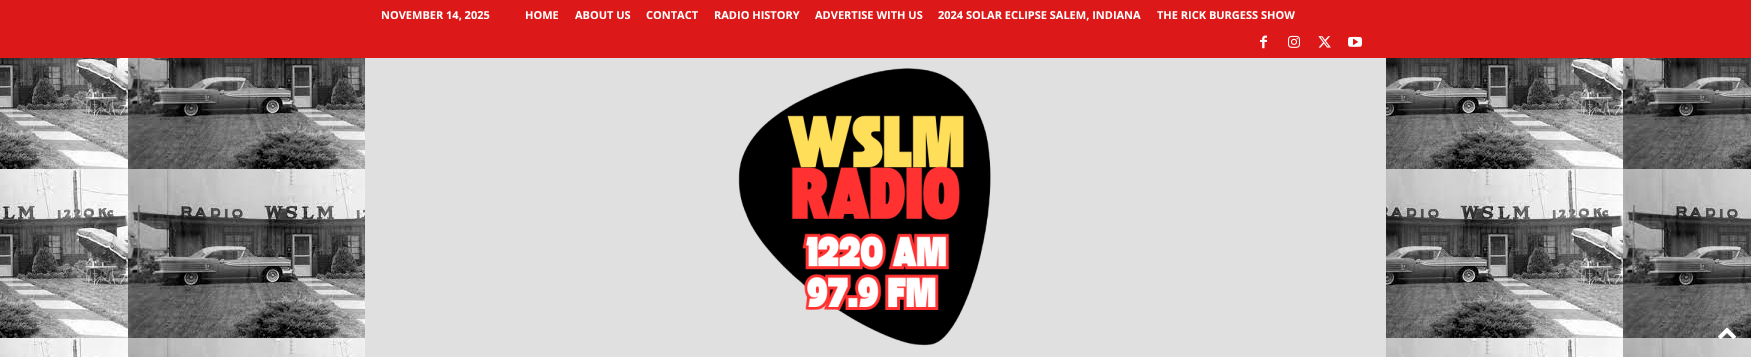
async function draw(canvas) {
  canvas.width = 1751;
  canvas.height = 357;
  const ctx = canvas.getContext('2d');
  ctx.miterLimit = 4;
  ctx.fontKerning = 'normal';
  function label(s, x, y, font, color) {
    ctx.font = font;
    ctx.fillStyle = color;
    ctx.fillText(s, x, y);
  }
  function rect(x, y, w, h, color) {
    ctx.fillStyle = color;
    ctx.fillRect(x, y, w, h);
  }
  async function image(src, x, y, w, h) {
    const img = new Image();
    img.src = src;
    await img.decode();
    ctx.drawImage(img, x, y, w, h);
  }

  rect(0, 0, 1751, 357, '#fff');
  await image('assets/img1.png', 0, 58, 1751, 299);
  rect(0, 0, 1751, 58, '#dd1818');
  label('NOVEMBER 14, 2025', 381, 19, 'bold 11px Open Sans', '#fff');
  label('HOME', 525, 19, 'bold 11px Open Sans', '#fff');
  label('ABOUT US', 575, 19, 'bold 11px Open Sans', '#fff');
  label('CONTACT', 646, 19, 'bold 11px Open Sans', '#fff');
  label('RADIO HISTORY', 714, 19, 'bold 11px Open Sans', '#fff');
  label('ADVERTISE WITH US', 815, 19, 'bold 11px Open Sans', '#fff');
  label('2024 SOLAR ECLIPSE SALEM, INDIANA', 938, 19, 'bold 11px Open Sans', '#fff');
  label('THE RICK BURGESS SHOW', 1157, 19, 'bold 11px Open Sans', '#fff');
  await image('assets/img2.png', 1260, 35, 7, 14);
  await image('assets/img3.png', 1288, 35, 12, 13);
  await image('assets/img4.png', 1318, 36, 13, 12);
  await image('assets/img5.png', 1348, 36, 14, 11);
  rect(365, 58, 1021, 299, '#e0e0e0');
  await image('assets/img6.png', 738, 68, 253, 278);
  await image('assets/img7.png', 1718, 327, 18, 12);
}

draw(document.querySelector('canvas'));
